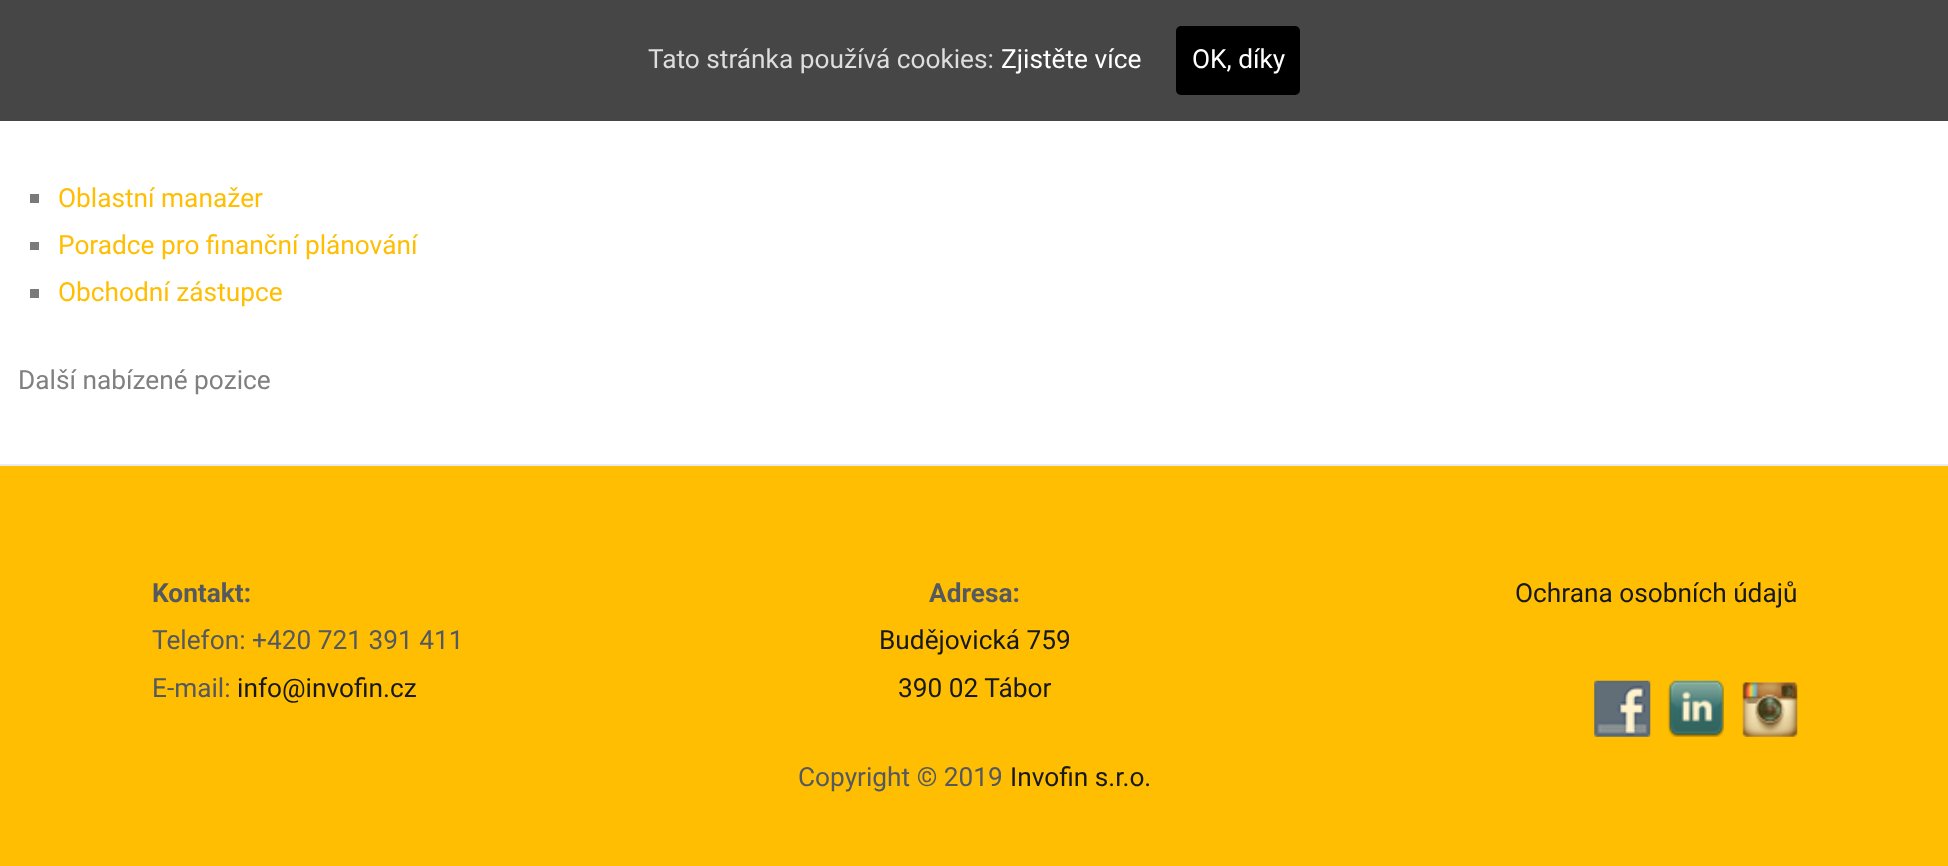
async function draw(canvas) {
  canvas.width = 1948;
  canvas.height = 866;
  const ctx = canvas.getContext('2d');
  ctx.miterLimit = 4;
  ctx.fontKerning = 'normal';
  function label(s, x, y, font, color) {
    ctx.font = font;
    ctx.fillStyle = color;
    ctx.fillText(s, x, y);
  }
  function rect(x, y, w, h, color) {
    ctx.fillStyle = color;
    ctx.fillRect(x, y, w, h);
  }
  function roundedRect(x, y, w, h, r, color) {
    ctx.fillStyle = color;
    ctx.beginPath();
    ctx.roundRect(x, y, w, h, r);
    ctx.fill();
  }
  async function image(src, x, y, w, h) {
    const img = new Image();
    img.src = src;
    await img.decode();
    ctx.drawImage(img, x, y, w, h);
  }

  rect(0, 0, 1948, 866, '#fff');
  rect(0, 0, 1948, 121, '#464646');
  label('Tato stránka používá cookies:', 648, 68, '26.25px Roboto', '#ddd');
  label('Zjistěte více', 1001, 68, '26.25px Roboto', '#fff');
  roundedRect(1176, 26, 124, 69, 5, '#000');
  label('OK, díky', 1192, 68, '26.25px Roboto', '#fff');
  rect(30, 194, 9, 9, '#7a7a7a');
  label('Oblastní manažer', 58, 207, '26.25px Roboto', '#ffbe02');
  rect(30, 242, 9, 8, '#7a7a7a');
  label('Poradce pro finanční plánování', 58, 254, '26.25px Roboto', '#ffbe02');
  rect(30, 289, 9, 9, '#7a7a7a');
  label('Obchodní zástupce', 58, 301, '26.25px Roboto', '#ffbe02');
  label('Další nabízené pozice', 18, 389, '26.25px Roboto', '#808080');
  rect(0, 466, 1948, 400, '#ffbe02');
  rect(0, 464, 1948, 2, '#e9ecef');
  label('Kontakt:', 152, 602, 'bold 26.25px Roboto', '#54595f');
  label('Telefon: +420 721 391 411', 152, 649, '26.25px Roboto', '#54595f');
  label('E-mail:', 152, 697, '26.25px Roboto', '#54595f');
  label('info@invofin.cz', 237, 697, '26.25px Roboto', '#16181a');
  label('Adresa:', 929, 602, 'bold 26.25px Roboto', '#54595f');
  label('Budějovická 759', 879, 649, '26.25px Roboto', '#16181a');
  label('390 02 Tábor', 898, 697, '26.25px Roboto', '#16181a');
  label('Copyright © 2019', 798, 786, '26.25px Roboto', '#54595f');
  label('Invofin s.r.o.', 1010, 786, '26.25px Roboto', '#16181a');
  label('Ochrana osobních údajů', 1515, 602, '26.25px Roboto', '#16181a');
  await image('assets/img1.png', 1594, 680, 57, 57);
  await image('assets/img2.png', 1667, 680, 57, 57);
  await image('assets/img3.png', 1742, 682, 56, 55);
}

draw(document.querySelector('canvas'));
